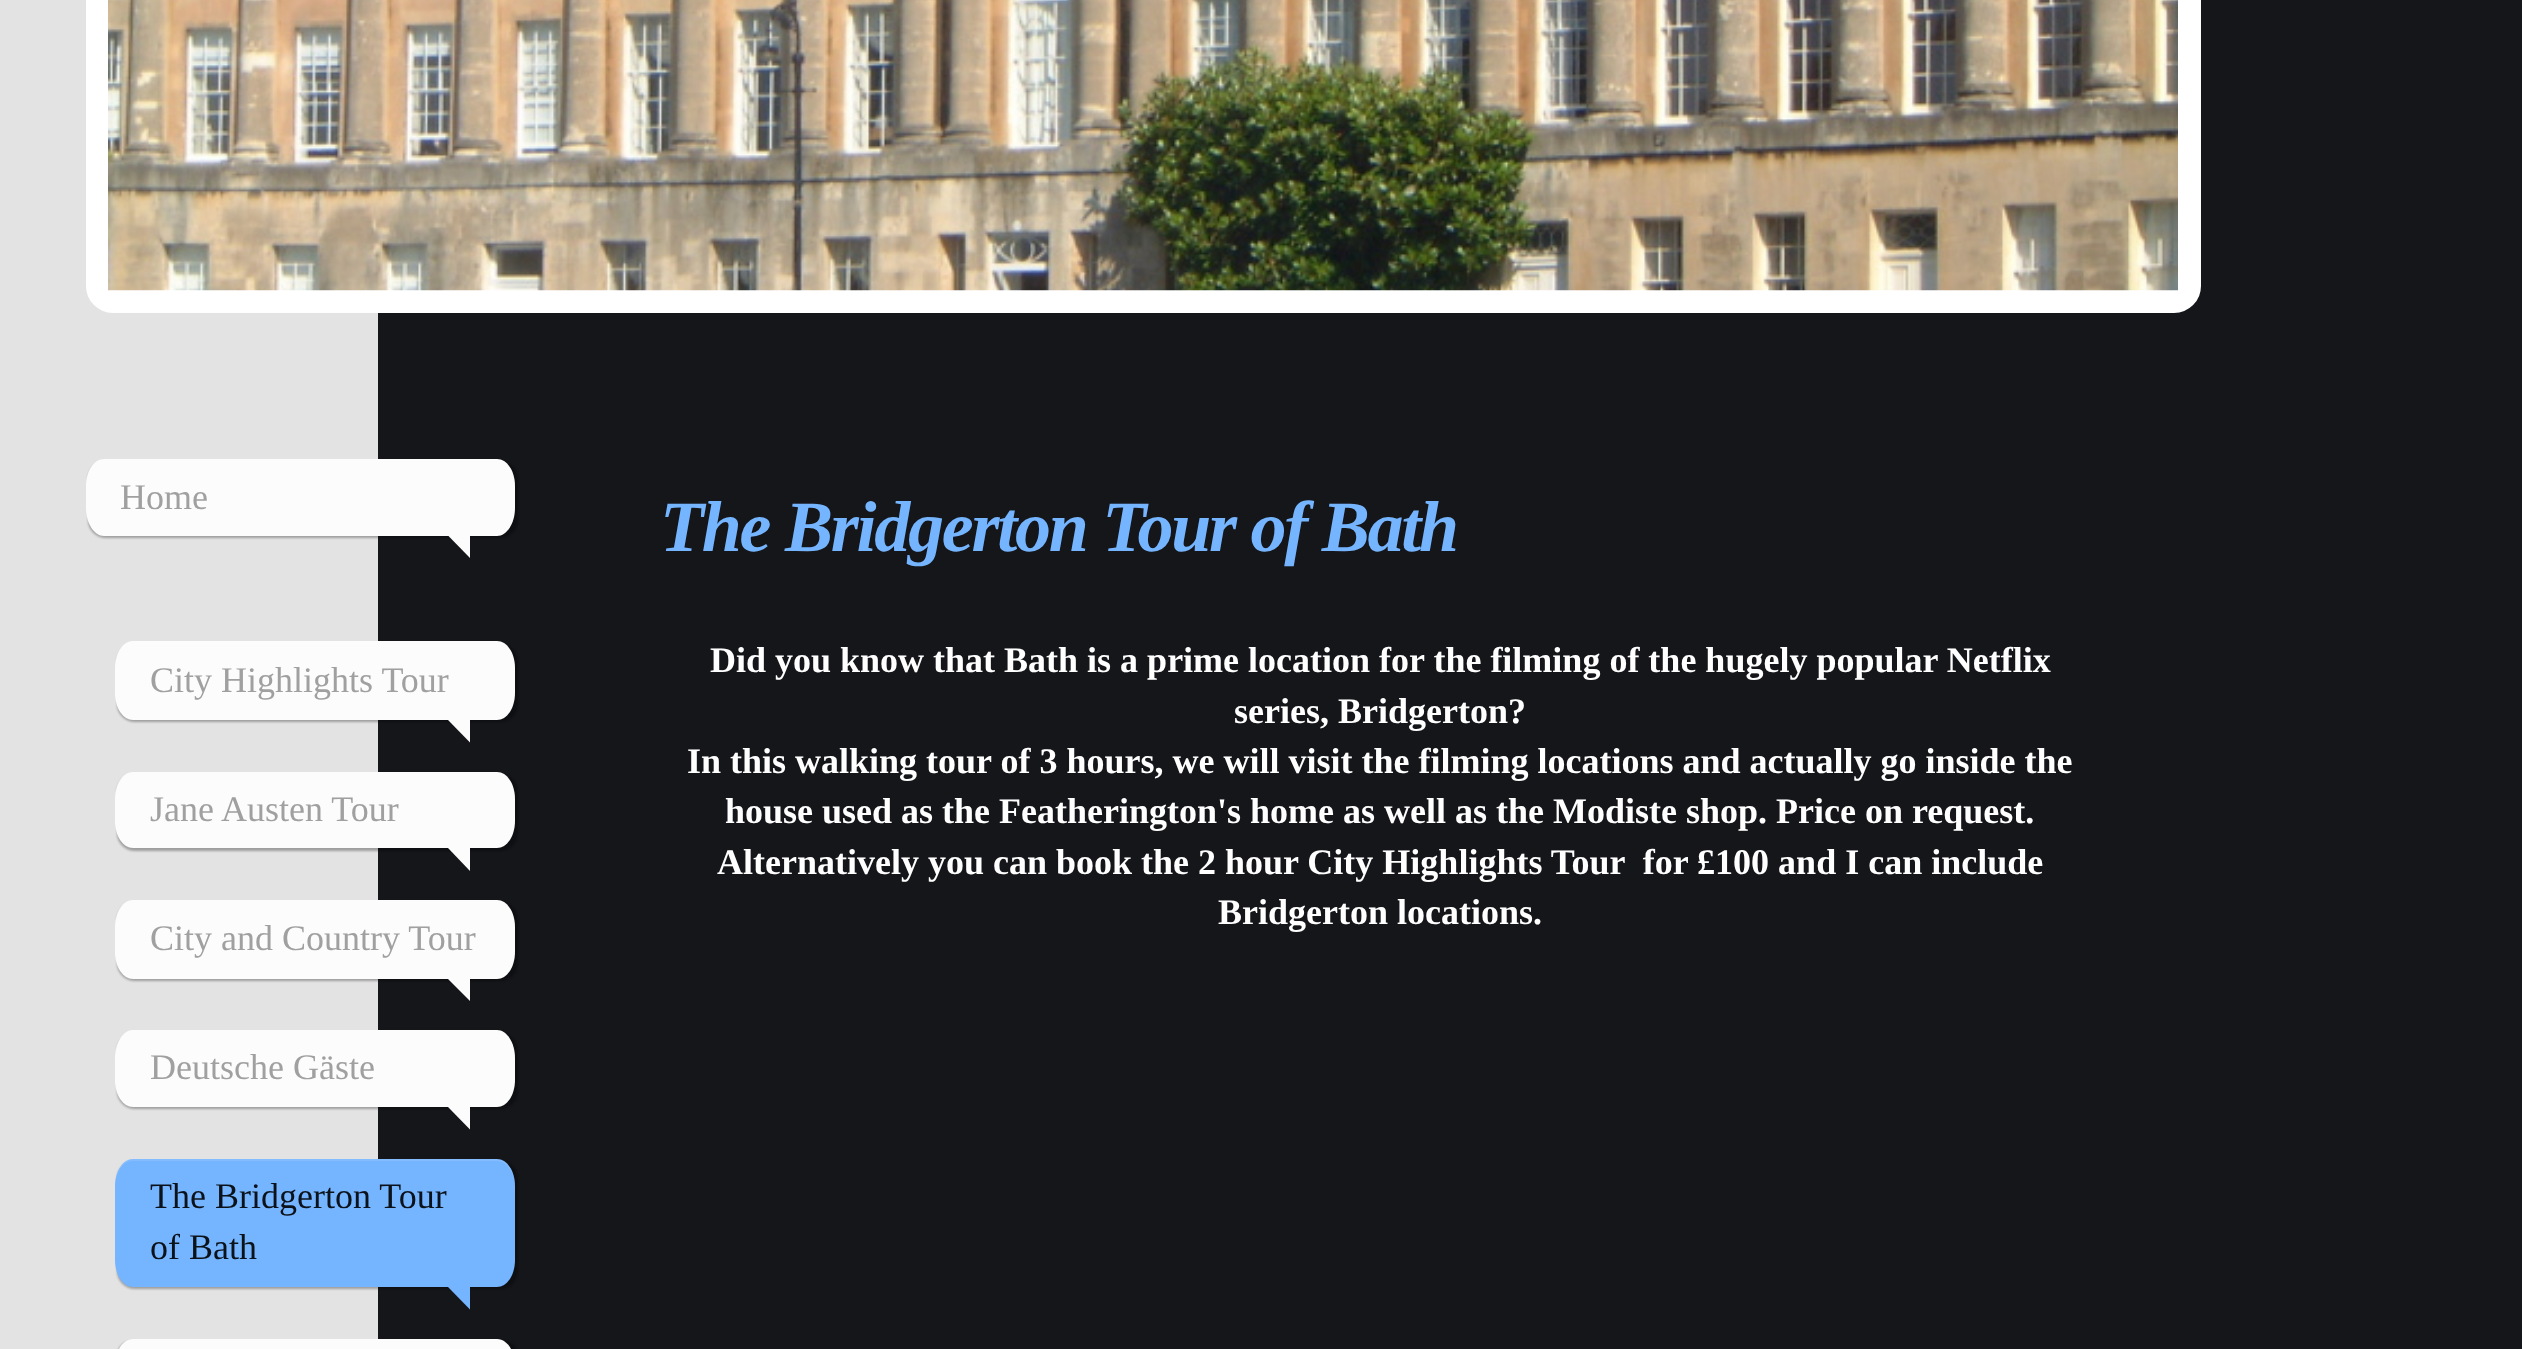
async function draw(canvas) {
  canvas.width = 2522;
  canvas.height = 1349;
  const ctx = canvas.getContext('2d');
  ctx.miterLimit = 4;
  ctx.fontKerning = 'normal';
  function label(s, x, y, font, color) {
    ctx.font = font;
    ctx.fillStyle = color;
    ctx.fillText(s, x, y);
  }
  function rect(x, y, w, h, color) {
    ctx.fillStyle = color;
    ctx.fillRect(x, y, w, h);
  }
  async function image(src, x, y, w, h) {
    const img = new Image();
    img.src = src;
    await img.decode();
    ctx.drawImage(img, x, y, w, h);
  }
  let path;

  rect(0, 0, 2522, 1349, '#e3e3e3');
  rect(378, 0, 2144, 1349, '#15161a');
  ctx.beginPath();
  ctx.roundRect(97.5, -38.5, 2092, 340, 15.5);
  ctx.strokeStyle = '#fff';
  ctx.lineWidth = 23;
  ctx.stroke();
  await image('assets/img1.png', 108, 0, 2070, 291);
  ctx.fillStyle = '#0000004d';
  ctx.filter = 'blur(1px)';
  ctx.beginPath();
  ctx.roundRect(88, 461, 430, 77, 18);
  ctx.fill();
  ctx.filter = 'none';
  ctx.fillStyle = '#fcfcfc';
  path = new Path2D('M104 459H497C507 459 515 471 515 486V508C515 523 507 536 497 536H104C94 536 86 523 86 508V486C86 471 94 459 104 459Z');
  ctx.fill(path);
  ctx.fillStyle = '#ffffff1a';
  path = new Path2D('M104 461H497C507 461 515 473 515 488V514V486C515 471 507 459 497 459H104C94 459 86 471 86 486V508L87 517L86 500V483C88 473 93 461 104 461Z');
  ctx.fill(path);
  label('Home', 120, 509, '36px Liberation Serif', '#a0a0a0');
  ctx.fillStyle = '#fcfcfc';
  path = new Path2D('M448 535.5H470V558Z');
  ctx.fill(path);
  ctx.fillStyle = '#0000004d';
  ctx.filter = 'blur(1px)';
  ctx.beginPath();
  ctx.roundRect(117, 644, 401, 78, 18);
  ctx.fill();
  ctx.filter = 'none';
  ctx.fillStyle = '#fcfcfc';
  path = new Path2D('M133 641H497C507 641 515 653 515 668V693C515 708 507 720 497 720H133C123 720 115 708 115 693V668C115 653 123 641 133 641Z');
  ctx.fill(path);
  ctx.fillStyle = '#ffffff1a';
  path = new Path2D('M133 644H497C507 644 515 656 515 670V699V672C515 661 512 641 497 641H133C118 641 115 661 115 672V699V665C117 656 122 644 133 644Z');
  ctx.fill(path);
  label('City Highlights Tour', 150, 692, '36px Liberation Serif', '#a0a0a0');
  ctx.fillStyle = '#fcfcfc';
  path = new Path2D('M448 720H470V742.5Z');
  ctx.fill(path);
  ctx.fillStyle = '#0000004d';
  ctx.filter = 'blur(1px)';
  ctx.beginPath();
  ctx.roundRect(117, 774, 401, 77, 18);
  ctx.fill();
  ctx.filter = 'none';
  ctx.fillStyle = '#fcfcfc';
  path = new Path2D('M133 772H497C507 772 515 784 515 799V821C515 836 507 848 497 848H133C123 848 115 836 115 821V799C115 784 123 772 133 772Z');
  ctx.fill(path);
  ctx.fillStyle = '#ffffff1a';
  path = new Path2D('M133 774H497C507 774 515 786 515 801V826V802C515 791 512 772 497 772H133C118 772 115 791 115 802V826V796C117 786 122 774 133 774Z');
  ctx.fill(path);
  label('Jane Austen Tour', 150, 821, '36px Liberation Serif', '#a0a0a0');
  ctx.fillStyle = '#fcfcfc';
  path = new Path2D('M448 848H470V871Z');
  ctx.fill(path);
  ctx.fillStyle = '#0000004d';
  ctx.filter = 'blur(1px)';
  ctx.beginPath();
  ctx.roundRect(117, 902, 401, 79, 18);
  ctx.fill();
  ctx.filter = 'none';
  ctx.fillStyle = '#fcfcfc';
  path = new Path2D('M133 900H497C507 900 515 912 515 927V952C515 967 507 979 497 979H133C123 979 115 967 115 952V927C115 912 123 900 133 900Z');
  ctx.fill(path);
  ctx.fillStyle = '#ffffff1a';
  path = new Path2D('M133 902H497C507 902 515 914 515 929V957V931C515 920 512 900 497 900H133C118 900 115 920 115 931V957V924C117 914 122 902 133 902Z');
  ctx.fill(path);
  label('City and Country Tour', 150, 950, '36px Liberation Serif', '#a0a0a0');
  ctx.fillStyle = '#fcfcfc';
  path = new Path2D('M448 979H470V1001Z');
  ctx.fill(path);
  ctx.fillStyle = '#0000004d';
  ctx.filter = 'blur(1px)';
  ctx.beginPath();
  ctx.roundRect(117, 1033, 401, 76, 18);
  ctx.fill();
  ctx.filter = 'none';
  ctx.fillStyle = '#fcfcfc';
  path = new Path2D('M133 1030H497C507 1030 515 1043 515 1058V1080C515 1095 507 1107 497 1107H133C123 1107 115 1095 115 1080V1058C115 1043 123 1030 133 1030Z');
  ctx.fill(path);
  ctx.fillStyle = '#ffffff1a';
  path = new Path2D('M133 1033H497C507 1033 515 1045 515 1060V1086V1061C515 1050 512 1031 497 1030H133C118 1031 115 1050 115 1061V1086V1055C117 1045 122 1033 133 1033Z');
  ctx.fill(path);
  label('Deutsche Gäste', 150, 1079, '36px Liberation Serif', '#a0a0a0');
  ctx.fillStyle = '#fcfcfc';
  path = new Path2D('M448 1107H470V1129.5Z');
  ctx.fill(path);
  ctx.fillStyle = '#0000004d';
  ctx.filter = 'blur(1px)';
  ctx.beginPath();
  ctx.roundRect(117, 1161, 401, 128, 18);
  ctx.fill();
  ctx.filter = 'none';
  ctx.fillStyle = '#75b5ff';
  path = new Path2D('M133 1159H497C507 1159 515 1171 515 1186V1260C515 1275 507 1287 497 1287H133C123 1287 115 1275 115 1260V1186C115 1171 123 1159 133 1159Z');
  ctx.fill(path);
  ctx.fillStyle = '#ffffff1a';
  path = new Path2D('M133 1161H497C507 1161 515 1173 515 1188V1266V1260V1186C515 1171 507 1159 497 1159H133C123 1159 115 1171 115 1186V1260V1266V1183C117 1173 122 1161 133 1161Z');
  ctx.fill(path);
  label('The Bridgerton Tour', 150, 1208, '36px Liberation Serif', '#0c121a');
  label('of Bath', 150, 1259, '36px Liberation Serif', '#0c121a');
  ctx.fillStyle = '#75b5ff';
  path = new Path2D('M448 1287H470V1309.5Z');
  ctx.fill(path);
  ctx.fillStyle = '#0000004d';
  ctx.filter = 'blur(1px)';
  ctx.beginPath();
  ctx.roundRect(117, 1341, 401, 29, 18);
  ctx.fill();
  ctx.filter = 'none';
  ctx.fillStyle = '#fcfcfc';
  path = new Path2D('M133 1339H497C507 1339 515 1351 515 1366V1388C515 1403 507 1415 497 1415H133C123 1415 115 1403 115 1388V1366C115 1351 123 1339 133 1339Z');
  ctx.fill(path);
  ctx.fillStyle = '#ffffff1a';
  path = new Path2D('M133 1341H497C507 1341 515 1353 515 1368V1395V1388V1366C515 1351 507 1339 497 1339H133C123 1339 115 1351 115 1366V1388V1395V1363C117 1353 122 1341 133 1341Z');
  ctx.fill(path);
  ctx.letterSpacing = '-2.25px';
  label('The Bridgerton Tour of Bath', 660, 551, 'italic bold 72px Liberation Serif', '#75b5ff');
  ctx.letterSpacing = '0px';
  label('Did you know that Bath is a prime location for the filming of the hugely popular Netflix', 710, 672, 'bold 36px Liberation Serif', '#fff');
  label('series, Bridgerton?', 1234, 723, 'bold 36px Liberation Serif', '#fff');
  label('In this walking tour of 3 hours, we will visit the filming locations and actually go inside the', 687, 773, 'bold 36px Liberation Serif', '#fff');
  label('house used as the Featherington\'s home as well as the Modiste shop. Price on request.', 725, 823, 'bold 36px Liberation Serif', '#fff');
  label('Alternatively you can book the 2 hour City Highlights Tour  for £100 and I can include', 717, 874, 'bold 36px Liberation Serif', '#fff');
  label('Bridgerton locations.', 1218, 924, 'bold 36px Liberation Serif', '#fff');
}

draw(document.querySelector('canvas'));
